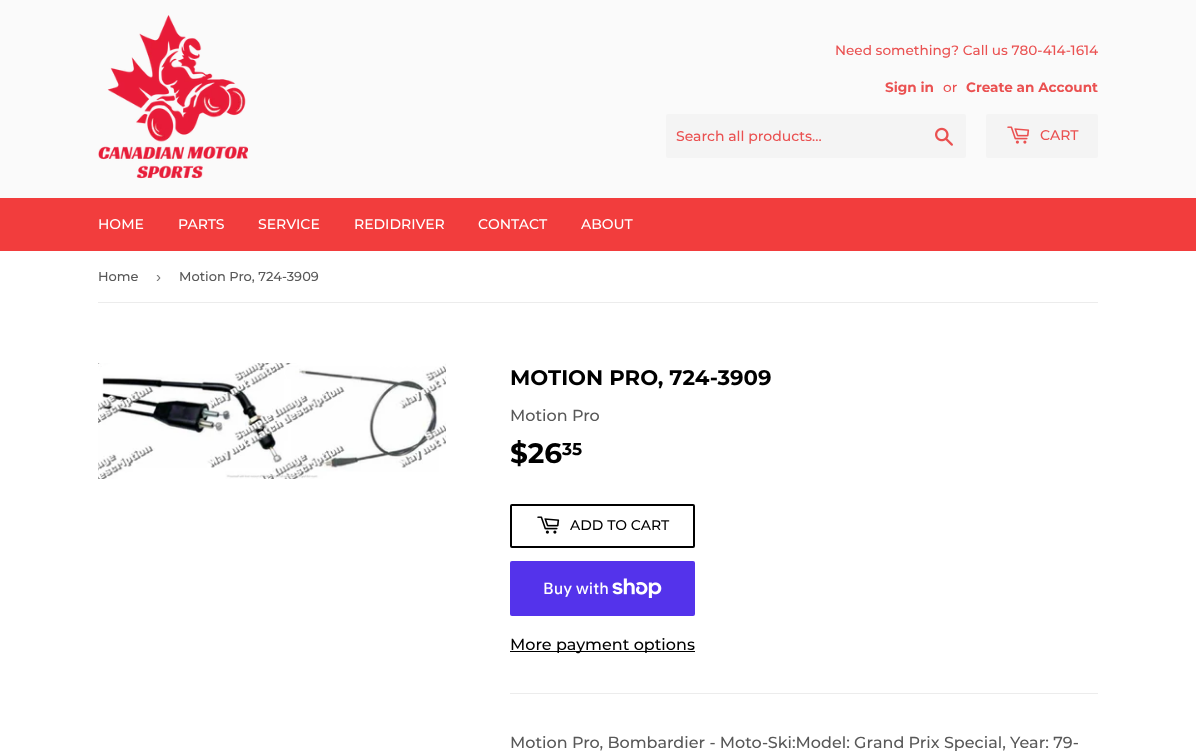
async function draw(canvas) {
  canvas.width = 1196;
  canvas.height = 755;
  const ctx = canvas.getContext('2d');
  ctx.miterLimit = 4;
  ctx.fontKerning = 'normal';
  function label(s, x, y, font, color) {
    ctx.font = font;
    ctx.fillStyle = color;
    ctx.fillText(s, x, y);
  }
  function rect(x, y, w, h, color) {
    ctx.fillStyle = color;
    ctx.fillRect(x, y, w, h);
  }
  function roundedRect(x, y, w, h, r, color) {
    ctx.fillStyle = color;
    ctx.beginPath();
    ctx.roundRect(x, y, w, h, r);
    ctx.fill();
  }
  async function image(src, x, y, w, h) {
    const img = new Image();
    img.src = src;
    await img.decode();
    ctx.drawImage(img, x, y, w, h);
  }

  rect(0, 0, 1196, 755, '#fff');
  rect(0, 0, 1196, 198, '#fafafa');
  await image('assets/img1.png', 98, 15, 150, 164);
  label('Need something? Call us 780-414-1614', 835, 55, '500 13.6px Montserrat', '#ea5151');
  label('Sign in', 885, 92, 'bold 13.6px Montserrat', '#ea5151');
  label('or', 943, 92, '500 13.6px Montserrat', '#ea5151');
  label('Create an Account', 966, 92, 'bold 13.6px Montserrat', '#ea5151');
  roundedRect(666, 114, 300, 44, 2, '#f4f4f4');
  label('Search all products...', 676, 141, '500 14px Montserrat', '#ea5151');
  await image('assets/img2.png', 935, 127, 18, 19);
  roundedRect(986, 114, 112, 44, 2, '#f4f4f4');
  await image('assets/img3.png', 1007, 126, 23, 18);
  label('CART', 1040, 140, '500 14px Montserrat', '#ea5151');
  rect(0, 198, 1196, 53, '#f23d3d');
  label('HOME', 98, 229, '500 14px Montserrat', '#fff');
  label('PARTS', 178, 229, '500 14px Montserrat', '#fff');
  label('SERVICE', 258, 229, '500 14px Montserrat', '#fff');
  label('REDIDRIVER', 354, 229, '500 14px Montserrat', '#fff');
  label('CONTACT', 478, 229, '500 14px Montserrat', '#fff');
  label('ABOUT', 581, 229, '500 14px Montserrat', '#fff');
  rect(98, 302, 1000, 1, '#ececec');
  label('Home', 98, 281, '500 13px Montserrat', '#585858');
  label('›', 156, 282, '15px Liberation Sans', '#767676');
  label('Motion Pro, 724-3909', 179, 281, '500 13px Montserrat', '#585858');
  await image('assets/img4.png', 98, 363, 348, 116);
  label('MOTION PRO, 724-3909', 510, 385, 'bold 21.25px Montserrat', '#000');
  label('Motion Pro', 510, 421, '500 16px Montserrat', '#585858');
  label('$26', 510, 463, 'bold 28px Montserrat', '#000');
  label('35', 562, 455, 'bold 17px Montserrat', '#000');
  ctx.beginPath();
  ctx.roundRect(511, 505, 183, 42, 1);
  ctx.strokeStyle = '#000';
  ctx.lineWidth = 2;
  ctx.stroke();
  await image('assets/img5.png', 537, 516, 23, 18);
  label('ADD TO CART', 570, 530, '500 14px Montserrat', '#000');
  roundedRect(510, 561, 185, 55, 2, '#5433eb');
  label('Buy with', 543, 594, '500 16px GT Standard', '#fff');
  await image('assets/img6.png', 612, 578, 50, 20);
  rect(510, 651, 185, 1, '#000');
  label('More payment options', 510, 650, '500 16px Montserrat', '#000');
  rect(510, 693, 588, 1, '#ececec');
  label('Motion Pro, Bombardier - Moto-Ski:Model: Grand Prix Special, Year: 79-', 510, 748, '500 16px Montserrat', '#585858');
}

draw(document.querySelector('canvas'));
